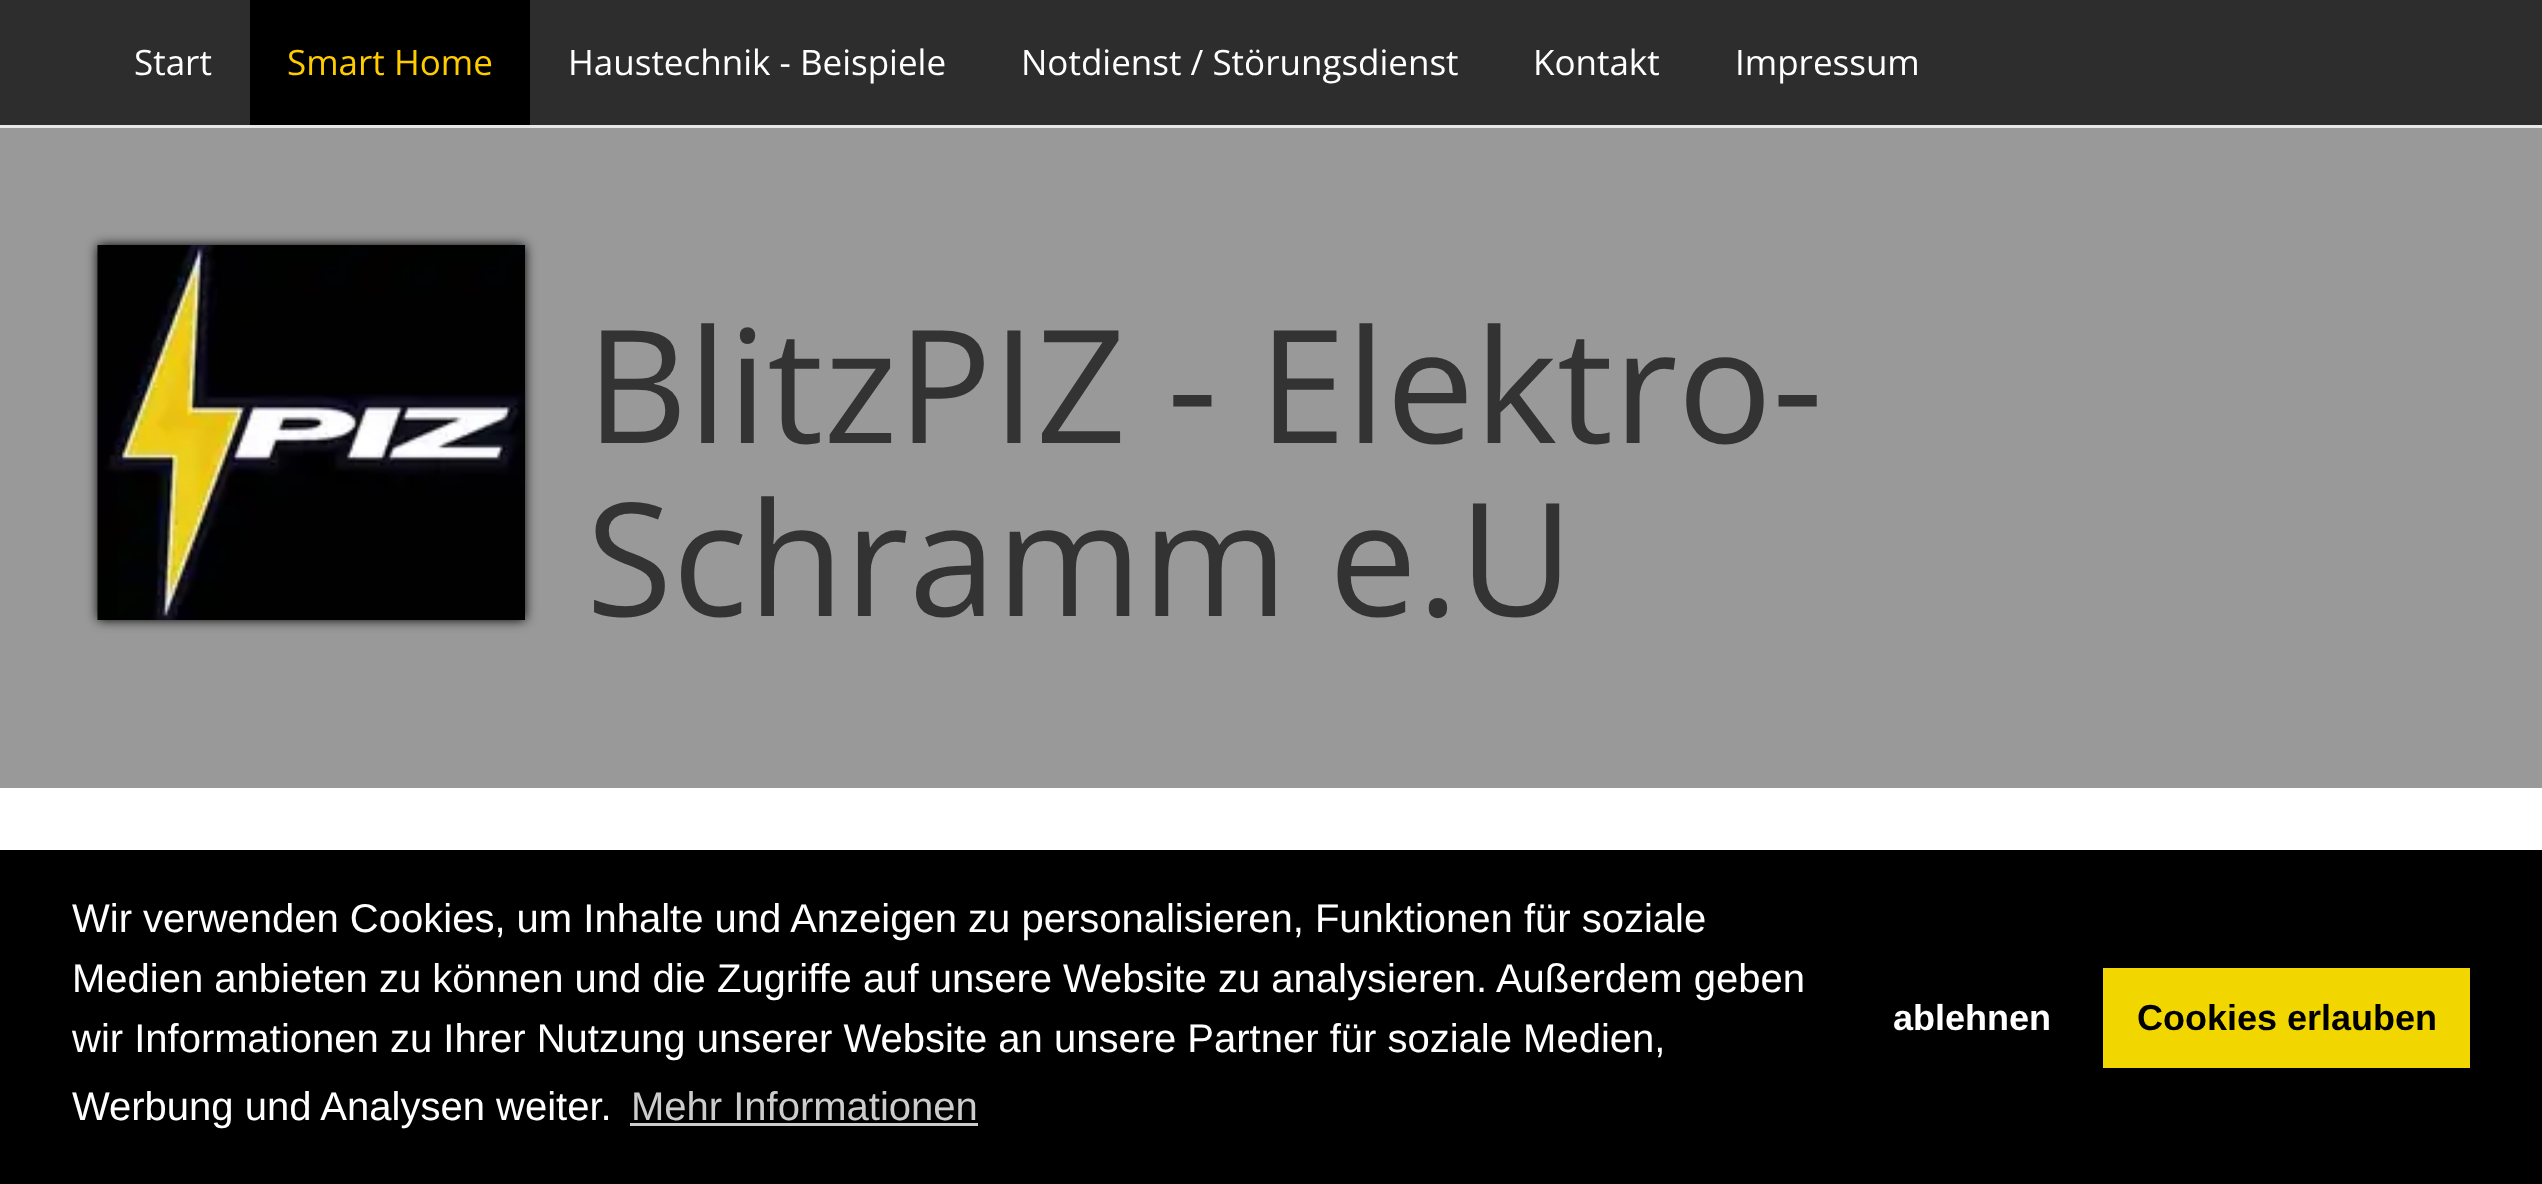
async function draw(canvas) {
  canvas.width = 2542;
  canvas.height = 1184;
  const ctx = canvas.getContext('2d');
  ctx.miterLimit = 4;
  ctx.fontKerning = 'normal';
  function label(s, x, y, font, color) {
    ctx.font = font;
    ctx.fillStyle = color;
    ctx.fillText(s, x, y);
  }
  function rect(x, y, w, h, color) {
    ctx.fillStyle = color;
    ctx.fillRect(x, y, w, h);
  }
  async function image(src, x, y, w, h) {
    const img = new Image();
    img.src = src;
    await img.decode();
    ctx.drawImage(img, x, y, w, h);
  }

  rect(0, 0, 2542, 1184, '#fff');
  rect(0, 0, 2542, 125, '#2d2d2d');
  rect(0, 125, 2542, 3, '#e7e7e7');
  label('Start', 134, 75, '35px Open Sans', '#fff');
  rect(250, 0, 280, 125, '#000');
  label('Smart Home', 287, 75, '35px Open Sans', '#fc0');
  label('Haustechnik - Beispiele', 568, 75, '35px Open Sans', '#fff');
  label('Notdienst / Störungsdienst', 1021, 75, '35px Open Sans', '#fff');
  label('Kontakt', 1533, 75, '35px Open Sans', '#fff');
  label('Impressum', 1735, 75, '35px Open Sans', '#fff');
  rect(0, 128, 2542, 660, '#999');
  ctx.fillStyle = '#000';
  ctx.filter = 'blur(6px)';
  ctx.beginPath();
  ctx.rect(98, 245, 427, 375);
  ctx.fill();
  ctx.filter = 'none';
  await image('assets/img1.png', 97, 245, 428, 375);
  label('BlitzPIZ - Elektro-', 586, 443, '157.5px Open Sans', '#333');
  label('Schramm e.U', 586, 616, '157.5px Open Sans', '#333');
  rect(0, 850, 2542, 334, '#000');
  label('Wir verwenden Cookies, um Inhalte und Anzeigen zu personalisieren, Funktionen für soziale', 72, 932, '40px Liberation Sans', '#fff');
  label('Medien anbieten zu können und die Zugriffe auf unsere Website zu analysieren. Außerdem geben', 72, 992, '40px Liberation Sans', '#fff');
  label('wir Informationen zu Ihrer Nutzung unserer Website an unsere Partner für soziale Medien,', 72, 1052, '40px Liberation Sans', '#fff');
  label('Werbung und Analysen weiter.', 72, 1120, '40px Liberation Sans', '#fff');
  label('Mehr Informationen', 631, 1120, '40px Liberation Sans', '#ccc');
  rect(630, 1123, 348, 3, '#ccc');
  label('ablehnen', 1893, 1030, 'bold 36px Liberation Sans', '#fff');
  rect(2103, 968, 367, 100, '#f1d600');
  label('Cookies erlauben', 2137, 1030, 'bold 36px Liberation Sans', '#000');
}

draw(document.querySelector('canvas'));
